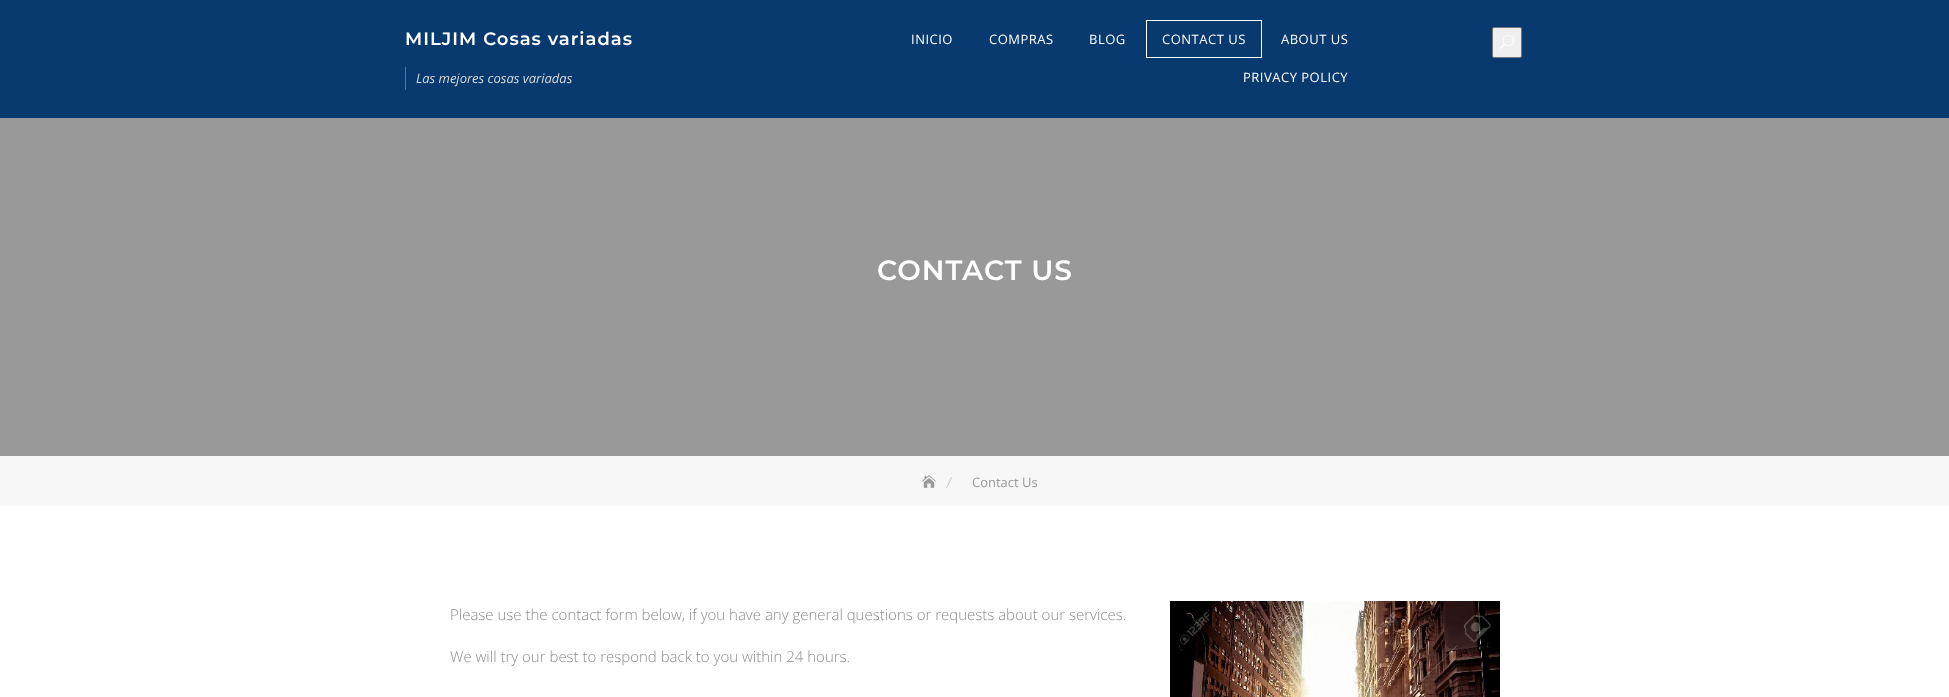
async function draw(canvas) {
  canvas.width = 1949;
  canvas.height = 697;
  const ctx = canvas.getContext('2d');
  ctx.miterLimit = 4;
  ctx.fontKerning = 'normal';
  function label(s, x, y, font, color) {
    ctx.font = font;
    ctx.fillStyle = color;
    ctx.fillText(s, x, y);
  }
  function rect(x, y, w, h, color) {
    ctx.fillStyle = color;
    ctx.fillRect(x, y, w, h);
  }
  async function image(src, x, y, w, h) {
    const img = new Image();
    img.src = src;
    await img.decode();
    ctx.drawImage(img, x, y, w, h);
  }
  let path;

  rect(0, 0, 1949, 697, '#fff');
  rect(0, 0, 1949, 118, '#083a6f');
  ctx.letterSpacing = '1px';
  label('MILJIM Cosas variadas', 405, 45, '600 18px Montserrat', '#fff');
  rect(405, 67, 1, 23, '#5f7388');
  ctx.letterSpacing = '0px';
  label('Las mejores cosas variadas', 416, 83, 'italic 13px Open Sans', '#d9d9d9');
  ctx.letterSpacing = '0.5px';
  label('INICIO', 911, 44, '13px Open Sans', '#fff');
  label('COMPRAS', 989, 44, '13px Open Sans', '#fff');
  label('BLOG', 1089, 44, '13px Open Sans', '#fff');
  ctx.strokeStyle = '#fff';
  ctx.strokeRect(1146.5, 20.5, 115, 37);
  label('CONTACT US', 1162, 44, '13px Open Sans', '#fff');
  label('ABOUT US', 1281, 44, '13px Open Sans', '#fff');
  label('PRIVACY POLICY', 1243, 82, '13px Open Sans', '#fff');
  ctx.fillStyle = '#efefef';
  ctx.beginPath();
  ctx.roundRect(1492.5, 27.5, 29, 30, 1.5);
  ctx.fill();
  ctx.strokeStyle = '#767676';
  ctx.stroke();
  await image('assets/img1.png', 1500, 35, 14, 14);
  rect(0, 118, 1949, 338, '#999');
  ctx.letterSpacing = '1px';
  label('CONTACT US', 877, 280, '600 28px Montserrat', '#fff');
  rect(0, 456, 1949, 50, '#f7f7f7');
  await image('assets/img2.png', 922, 475, 14, 13);
  ctx.fillStyle = '#ccc';
  path = new Path2D('M951 477L952 477.5L947 488.5L946 488Z');
  ctx.fill(path);
  ctx.letterSpacing = '0px';
  label('Contact Us', 972, 487, '13px Open Sans', '#999');
  label('Please use the contact form below, if you have any general questions or requests about our services.', 450, 620, '300 15px Open Sans', '#8c8c8c');
  label('We will try our best to respond back to you within 24 hours.', 450, 662, '300 15px Open Sans', '#8c8c8c');
  await image('assets/img3.png', 1170, 601, 330, 96);
}

draw(document.querySelector('canvas'));
